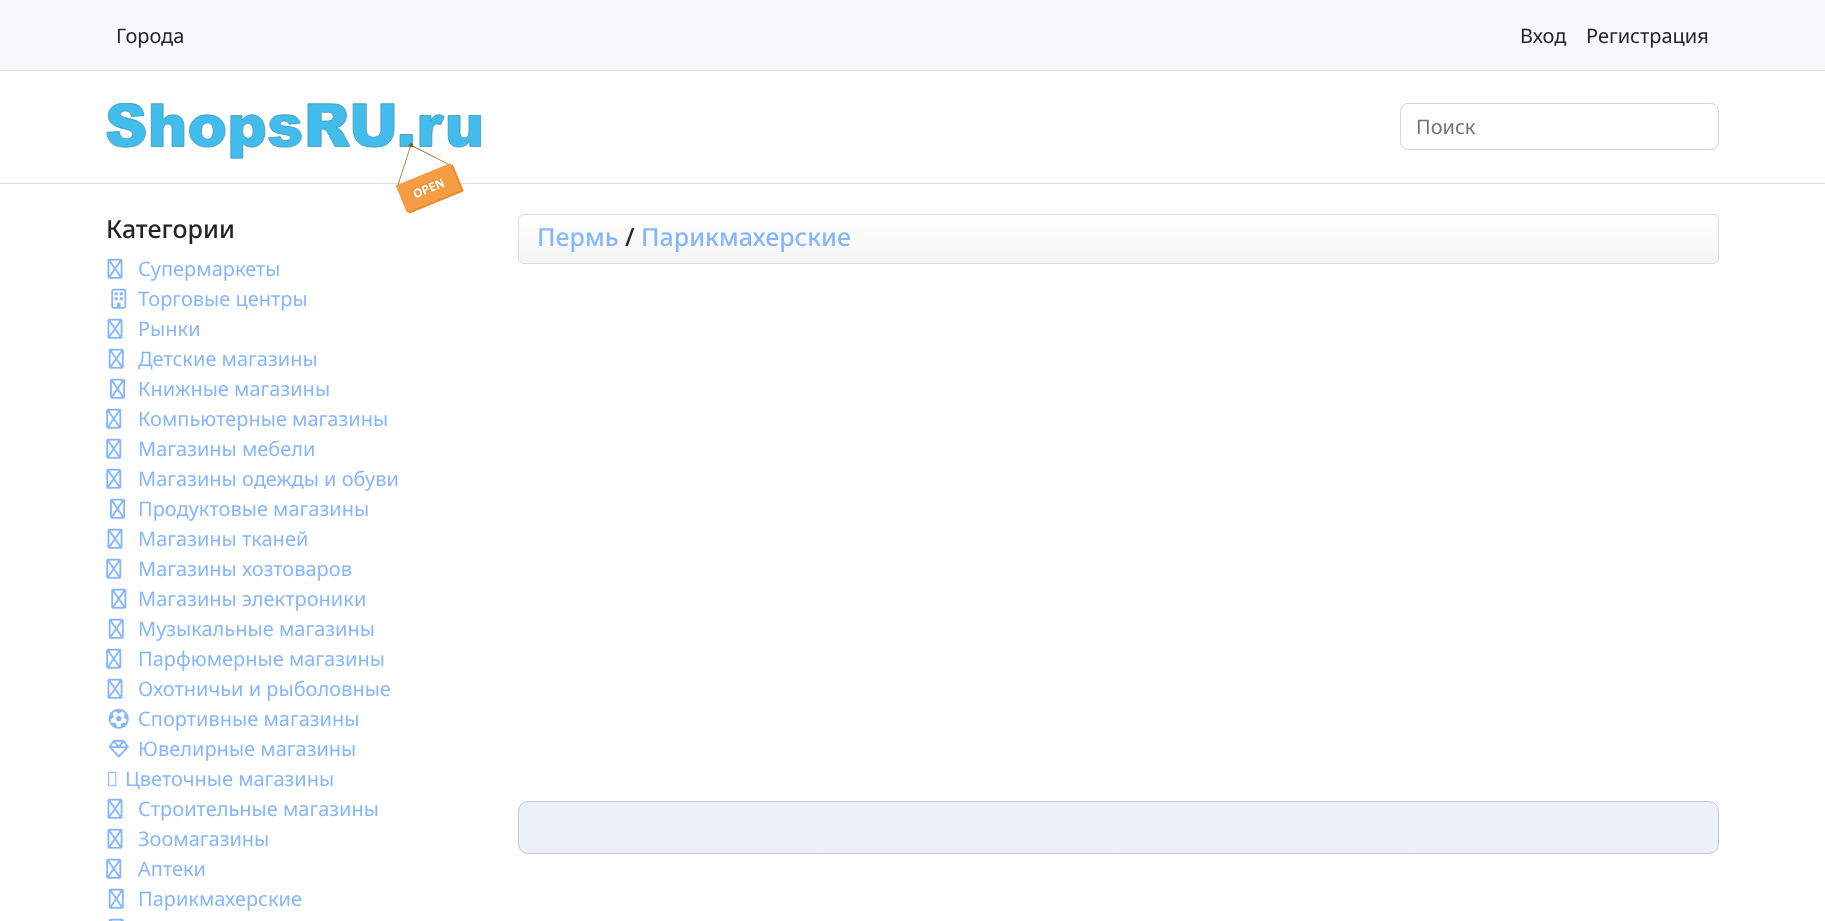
async function draw(canvas) {
  canvas.width = 1825;
  canvas.height = 921;
  const ctx = canvas.getContext('2d');
  ctx.miterLimit = 4;
  ctx.fontKerning = 'normal';
  function label(s, x, y, font, color) {
    ctx.font = font;
    ctx.fillStyle = color;
    ctx.fillText(s, x, y);
  }
  function rect(x, y, w, h, color) {
    ctx.fillStyle = color;
    ctx.fillRect(x, y, w, h);
  }
  async function image(src, x, y, w, h) {
    const img = new Image();
    img.src = src;
    await img.decode();
    ctx.drawImage(img, x, y, w, h);
  }
  let gradient;

  rect(0, 0, 1825, 921, '#fff');
  rect(0, 0, 1825, 70, '#f8f9fa');
  rect(0, 70, 1825, 1, '#dee2e6');
  label('Города', 116, 43, '20px Noto Sans', '#212529');
  label('Вход', 1520, 43, '20px Noto Sans', '#212529');
  label('Регистрация', 1586, 43, '20px Noto Sans', '#212529');
  rect(0, 183, 1825, 1, '#dee2e6');
  await image('assets/img1.png', 106, 103, 375, 111);
  ctx.beginPath();
  ctx.roundRect(1400.5, 103.5, 318, 46, 7.5);
  ctx.strokeStyle = '#ced4da';
  ctx.stroke();
  label('Поиск', 1416, 134, '20px Noto Sans', '#6c757d');
  label('Категории', 106, 238, '500 25px Noto Sans', '#212529');
  await image('assets/img2.png', 107, 258, 16, 21);
  label('Супермаркеты', 138, 276, '20px Noto Sans', '#86b7fe');
  await image('assets/img3.png', 111, 288, 16, 21);
  label('Торговые центры', 138, 306, '20px Noto Sans', '#86b7fe');
  await image('assets/img2.png', 107, 318, 16, 21);
  label('Рынки', 138, 336, '20px Noto Sans', '#86b7fe');
  await image('assets/img4.png', 108, 348, 16, 21);
  label('Детские магазины', 138, 366, '20px Noto Sans', '#86b7fe');
  await image('assets/img5.png', 110, 378, 15, 21);
  label('Книжные магазины', 138, 396, '20px Noto Sans', '#86b7fe');
  await image('assets/img6.png', 106, 408, 16, 21);
  label('Компьютерные магазины', 138, 426, '20px Noto Sans', '#86b7fe');
  await image('assets/img6.png', 106, 438, 16, 21);
  label('Магазины мебели', 138, 456, '20px Noto Sans', '#86b7fe');
  await image('assets/img6.png', 106, 468, 16, 21);
  label('Магазины одежды и обуви', 138, 486, '20px Noto Sans', '#86b7fe');
  await image('assets/img5.png', 110, 498, 15, 21);
  label('Продуктовые магазины', 138, 516, '20px Noto Sans', '#86b7fe');
  await image('assets/img2.png', 107, 528, 16, 21);
  label('Магазины тканей', 138, 546, '20px Noto Sans', '#86b7fe');
  await image('assets/img6.png', 106, 558, 16, 21);
  label('Магазины хозтоваров', 138, 576, '20px Noto Sans', '#86b7fe');
  await image('assets/img6.png', 111, 588, 16, 21);
  label('Магазины электроники', 138, 606, '20px Noto Sans', '#86b7fe');
  await image('assets/img4.png', 108, 618, 16, 21);
  label('Музыкальные магазины', 138, 636, '20px Noto Sans', '#86b7fe');
  await image('assets/img6.png', 106, 648, 16, 21);
  label('Парфюмерные магазины', 138, 666, '20px Noto Sans', '#86b7fe');
  await image('assets/img2.png', 107, 678, 16, 21);
  label('Охотничьи и рыболовные', 138, 696, '20px Noto Sans', '#86b7fe');
  await image('assets/img7.png', 108, 708, 21, 21);
  label('Спортивные магазины', 138, 726, '20px Noto Sans', '#86b7fe');
  await image('assets/img8.png', 108, 740, 21, 18);
  label('Ювелирные магазины', 138, 756, '20px Noto Sans', '#86b7fe');
  await image('assets/img9.png', 108, 772, 9, 15);
  label('Цветочные магазины', 125, 786, '20px Noto Sans', '#86b7fe');
  await image('assets/img2.png', 107, 798, 16, 21);
  label('Строительные магазины', 138, 816, '20px Noto Sans', '#86b7fe');
  await image('assets/img2.png', 107, 828, 16, 21);
  label('Зоомагазины', 138, 846, '20px Noto Sans', '#86b7fe');
  await image('assets/img6.png', 106, 858, 16, 21);
  label('Аптеки', 138, 876, '20px Noto Sans', '#86b7fe');
  await image('assets/img4.png', 108, 888, 16, 21);
  label('Парикмахерские', 138, 906, '20px Noto Sans', '#86b7fe');
  await image('assets/img10.png', 108, 918, 16, 3);
  ctx.save();
  ctx.beginPath();
  ctx.roundRect(518, 214, 1201, 50, 6);
  ctx.clip();
  gradient = ctx.createLinearGradient(1118, 215, 1118, 263);
  gradient.addColorStop(0, '#fff');
  gradient.addColorStop(1, '#f5f5f5');
  ctx.fillStyle = gradient;
  ctx.fillRect(518, 215, 1201, 48);
  ctx.restore();
  ctx.beginPath();
  ctx.roundRect(518.5, 214.5, 1200, 49, 5.5);
  ctx.strokeStyle = '#ddd';
  ctx.stroke();
  label('Пермь', 537, 246, '500 25px Noto Sans', '#86b7fe');
  label('/', 625, 246, '500 25px Noto Sans', '#212529');
  label('Парикмахерские', 641, 246, '500 25px Noto Sans', '#86b7fe');
  ctx.fillStyle = '#ecf0f8';
  ctx.beginPath();
  ctx.roundRect(518.5, 801.5, 1200, 52, 9.5);
  ctx.fill();
  ctx.strokeStyle = '#c7c7c7';
  ctx.stroke();
}

draw(document.querySelector('canvas'));
